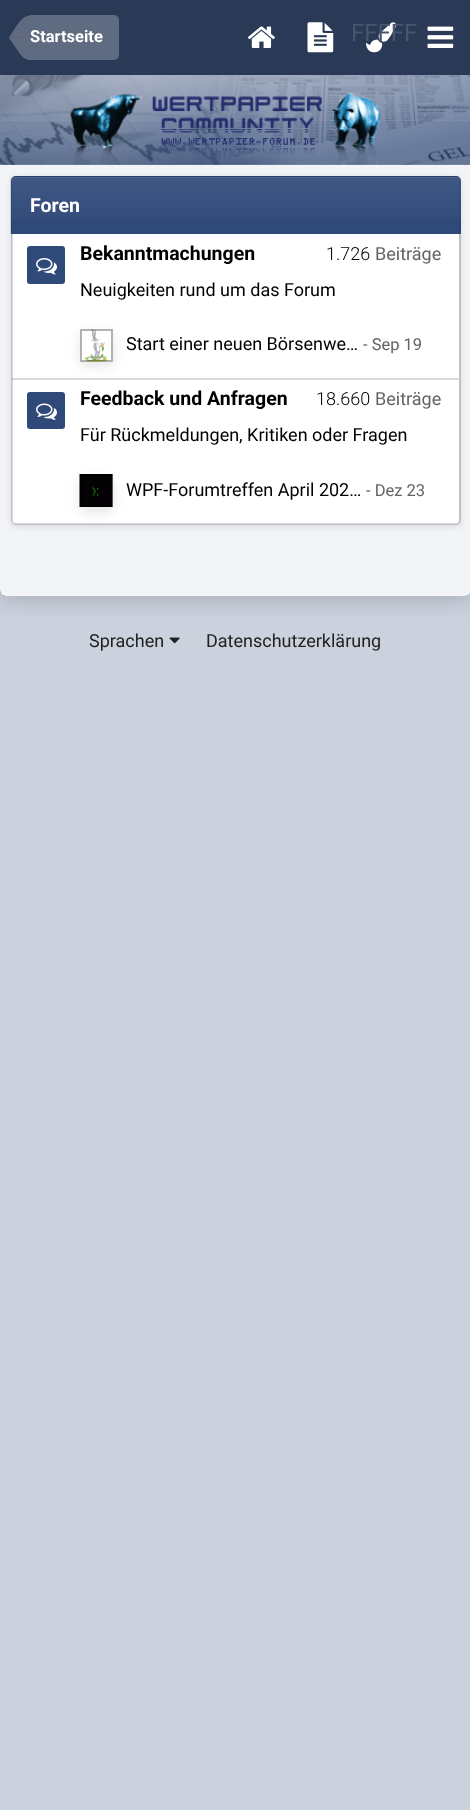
async function draw(canvas) {
  canvas.width = 470;
  canvas.height = 1810;
  const ctx = canvas.getContext('2d');
  ctx.miterLimit = 4;
  ctx.fontKerning = 'normal';
  function label(s, x, y, font, color) {
    ctx.font = font;
    ctx.fillStyle = color;
    ctx.fillText(s, x, y);
  }
  function rect(x, y, w, h, color) {
    ctx.fillStyle = color;
    ctx.fillRect(x, y, w, h);
  }
  function roundedRect(x, y, w, h, r, color) {
    ctx.fillStyle = color;
    ctx.beginPath();
    ctx.roundRect(x, y, w, h, r);
    ctx.fill();
  }
  async function image(src, x, y, w, h) {
    const img = new Image();
    img.src = src;
    await img.decode();
    ctx.drawImage(img, x, y, w, h);
  }
  let gradient, path;

  rect(0, 0, 470, 1810, '#cbd1dd');
  ctx.fillStyle = '#00000033';
  ctx.filter = 'blur(12px)';
  ctx.beginPath();
  ctx.roundRect(0, 77, 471, 520, 6);
  ctx.fill();
  ctx.filter = 'none';
  rect(0, 0, 470, 75, '#2a3956');
  ctx.fillStyle = '#5f6b80';
  ctx.beginPath();
  ctx.roundRect(30, 15, 89, 45, [0, 5, 5, 0]);
  ctx.fill();
  path = new Path2D('M9 37.5H30V60C27 60 23.5 58.5 20 54L9 38Z');
  ctx.fill(path);
  ctx.fillStyle = '#ffffff40';
  path = new Path2D('M30 15.5V37.5H9L13 31.5C16.5 25.5 22.5 15.5 30 15.5Z');
  ctx.fill(path);
  label('Startseite', 30, 42, 'bold 16.5px Roboto', '#fff');
  await image('assets/img1.png', 248, 26, 27, 22);
  await image('assets/img2.png', 307, 22, 27, 31);
  await image('assets/img3.png', 366, 22, 30, 31);
  label('FFFFF', 351, 41, '24px Roboto', '#48556e');
  await image('assets/img4.png', 427, 26, 27, 22);
  roundedRect(0, 75, 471, 521, 6, '#2f4979');
  roundedRect(0, 75, 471, 521, 6, '#fffffff0');
  rect(0, 75, 470, 90, '#2f4979');
  await image('assets/img5.png', 0, 75, 470, 90);
  rect(0, 164, 470, 1, '#ffffff1a');
  await image('assets/img6.png', 70, 93, 311, 72);
  ctx.fillStyle = '#0000001a';
  ctx.filter = 'blur(3px)';
  ctx.beginPath();
  ctx.roundRect(11, 177, 450, 350, 5);
  ctx.fill();
  ctx.filter = 'none';
  roundedRect(12, 177, 447, 347, 3, '#fff');
  ctx.beginPath();
  ctx.roundRect(12, 177, 448, 347, 4);
  ctx.strokeStyle = '#00000026';
  ctx.lineWidth = 2;
  ctx.stroke();
  ctx.fillStyle = '#2f4979';
  ctx.beginPath();
  ctx.roundRect(11, 176, 450, 58, [5, 5, 0, 0]);
  ctx.fill();
  gradient = ctx.createLinearGradient(236, 177, 236, 234);
  gradient.addColorStop(0, '#ffffff14');
  gradient.addColorStop(1, '#ffffff00');
  ctx.fillStyle = gradient;
  ctx.fillRect(11, 177, 450, 42);
  ctx.fillStyle = '#526890';
  path = new Path2D('M15 178H456C458 178 459 180 459 182C459 180 459 177 456 177H15L13 178L12 182C12 180 13 178 15 178Z');
  ctx.fill(path);
  ctx.fillStyle = '#0000001a';
  path = new Path2D('M15 176H456C458 176 460 178 460 180V234H10V180C10 178 13 176 15 176ZM15 177H456C458 177 459 178 459 180V234H12V180C12 178 13 177 15 177Z');
  ctx.fill(path, 'evenodd');
  label('Foren', 30, 212, 'bold 19.5px Roboto', '#fff');
  rect(12, 378, 447, 2, '#00000026');
  roundedRect(27, 246, 38, 38, 3, '#2f4979');
  await image('assets/img7.png', 36, 258, 21, 17);
  label('Bekanntmachungen', 80, 260, 'bold 19.5px Roboto', '#000');
  label('Neuigkeiten rund um das Forum', 80, 296, '18px Roboto', '#000');
  label('1.726', 326, 260, '300 18px Roboto', '#000');
  label('Beiträge', 375, 260, '18px Roboto', '#636363');
  await image('assets/img8.png', 84, 329, 24, 33);
  ctx.save();
  path = new Path2D('M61 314H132V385H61ZM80 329H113V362H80Z');
  ctx.clip(path, 'evenodd');
  ctx.fillStyle = '#0000001a';
  ctx.filter = 'blur(6px)';
  ctx.beginPath();
  ctx.rect(80, 333, 33, 33);
  ctx.fill();
  ctx.filter = 'none';
  ctx.restore();
  ctx.strokeStyle = '#0000004d';
  ctx.strokeRect(81, 330, 31, 31);
  label('Start einer neuen Börsenwe…', 126, 350, '18px Roboto', '#000');
  label('- Sep 19', 363, 350, '16.5px Roboto', '#636363');
  roundedRect(27, 392, 38, 37, 3, '#2f4979');
  await image('assets/img9.png', 36, 403, 21, 17);
  label('Feedback und Anfragen', 80, 405, 'bold 19.5px Roboto', '#000');
  label('Für Rückmeldungen, Kritiken oder Fragen', 80, 441, '18px Roboto', '#000');
  label('18.660', 316, 405, '300 18px Roboto', '#000');
  label('Beiträge', 375, 405, '18px Roboto', '#636363');
  await image('assets/img10.png', 79, 474, 34, 33);
  ctx.save();
  path = new Path2D('M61 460H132V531H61ZM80 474H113V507H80Z');
  ctx.clip(path, 'evenodd');
  ctx.fillStyle = '#0000001a';
  ctx.filter = 'blur(6px)';
  ctx.beginPath();
  ctx.rect(80, 479, 33, 33);
  ctx.fill();
  ctx.filter = 'none';
  ctx.restore();
  ctx.strokeRect(81, 475, 31, 31);
  label('WPF-Forumtreffen April 202…', 126, 496, '18px Roboto', '#000');
  label('- Dez 23', 366, 496, '16.5px Roboto', '#636363');
  label('Sprachen', 89, 647, '18px Roboto', '#222');
  await image('assets/img11.png', 169, 637, 11, 7);
  label('Datenschutzerklärung', 206, 647, '18px Roboto', '#222');
}

draw(document.querySelector('canvas'));
